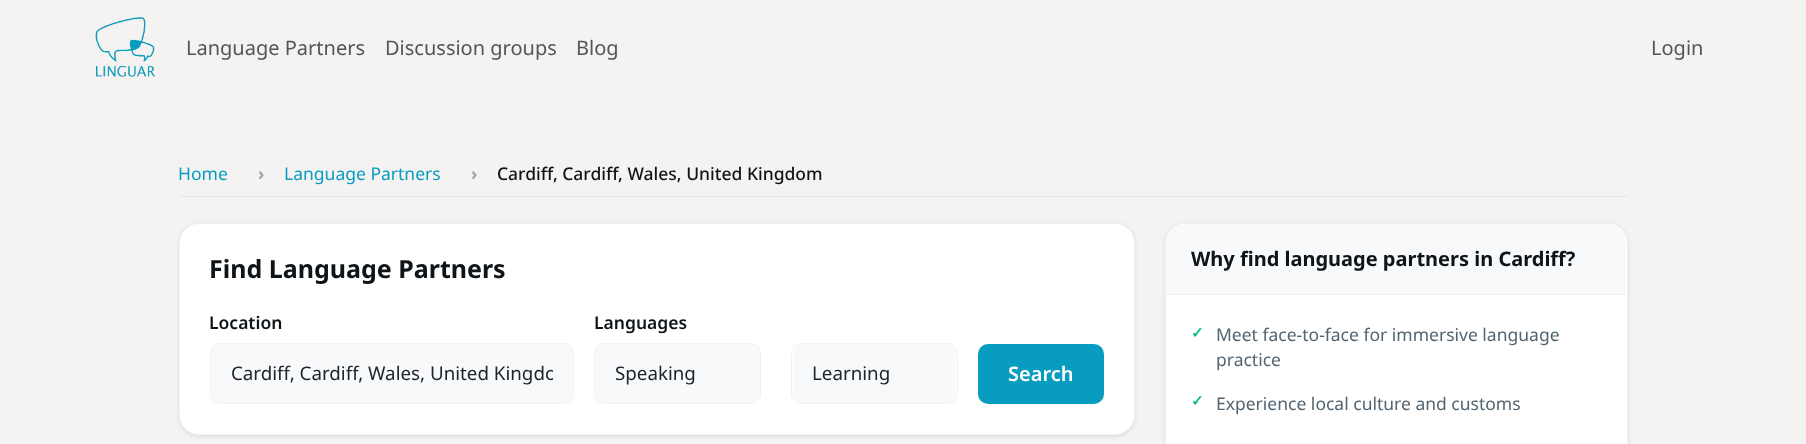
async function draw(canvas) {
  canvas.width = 1806;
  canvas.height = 444;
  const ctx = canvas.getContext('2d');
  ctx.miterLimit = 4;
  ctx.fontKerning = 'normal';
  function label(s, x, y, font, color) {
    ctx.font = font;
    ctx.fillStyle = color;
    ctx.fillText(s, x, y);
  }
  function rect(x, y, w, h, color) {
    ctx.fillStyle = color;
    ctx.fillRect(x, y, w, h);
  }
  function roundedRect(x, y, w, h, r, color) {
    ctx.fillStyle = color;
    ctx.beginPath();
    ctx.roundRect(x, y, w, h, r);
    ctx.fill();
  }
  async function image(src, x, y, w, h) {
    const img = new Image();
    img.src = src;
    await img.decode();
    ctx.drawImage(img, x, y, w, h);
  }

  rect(0, 0, 1806, 444, '#f4f3f2');
  await image('assets/img1.png', 95, 17, 60, 60);
  label('Language Partners', 186, 55, '20px Noto Sans', '#555');
  label('Discussion groups', 385, 55, '20px Noto Sans', '#555');
  label('Blog', 576, 55, '20px Noto Sans', '#555');
  label('Login', 1651, 55, '20px Noto Sans', '#555');
  rect(179, 196, 1450, 1, '#e1e8ed');
  label('Home', 178, 180, '17.5px Noto Sans', '#089cc0');
  label('›', 258, 180, 'bold 17.5px Noto Sans', '#9ca3af');
  label('Language Partners', 284, 180, '17.5px Noto Sans', '#089cc0');
  label('›', 471, 180, 'bold 17.5px Noto Sans', '#9ca3af');
  label('Cardiff, Cardiff, Wales, United Kingdom', 497, 180, '500 17.5px Noto Sans', '#0f1419');
  ctx.fillStyle = '#0000001a';
  ctx.filter = 'blur(2px)';
  ctx.beginPath();
  ctx.roundRect(179, 224, 956, 212, 20);
  ctx.fill();
  ctx.filter = 'none';
  ctx.fillStyle = '#fff';
  ctx.beginPath();
  ctx.roundRect(179.5, 223.5, 955, 211, 19.5);
  ctx.fill();
  ctx.strokeStyle = '#eff3f4';
  ctx.stroke();
  label('Find Language Partners', 209, 278, 'bold 25px Noto Sans', '#0f1419');
  label('Location', 209, 329, '600 17.5px Noto Sans', '#0f1419');
  ctx.fillStyle = '#f7f9fa';
  ctx.beginPath();
  ctx.roundRect(210.5, 343.5, 363, 60, 9.5);
  ctx.fill();
  ctx.stroke();
  ctx.save();
  ctx.beginPath();
  ctx.rect(231, 359, 322, 29);
  ctx.clip();
  label('Cardiff, Cardiff, Wales, United Kingdo', 231, 380, '18.75px Noto Sans', '#212529');
  ctx.restore();
  label('Languages', 594, 329, '600 17.5px Noto Sans', '#0f1419');
  ctx.fillStyle = '#f7f9fa';
  ctx.beginPath();
  ctx.roundRect(594.5, 343.5, 166, 60, 9.5);
  ctx.fill();
  ctx.stroke();
  label('Speaking', 615, 380, '18.75px Noto Sans', '#212529');
  roundedRect(793, 344, 163, 59, 9, '#f7f9fa');
  ctx.beginPath();
  ctx.roundRect(791.5, 343.5, 166, 60, 9.5);
  ctx.stroke();
  label('Learning', 812, 380, '18.75px Noto Sans', '#212529');
  roundedRect(978, 344, 126, 60, 10, '#089cc0');
  label('Search', 1008, 381, '600 20px Noto Sans', '#fff');
  ctx.fillStyle = '#0000001a';
  ctx.filter = 'blur(2px)';
  ctx.beginPath();
  ctx.roundRect(1165, 224, 463, 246, 20);
  ctx.fill();
  ctx.filter = 'none';
  ctx.fillStyle = '#fff';
  ctx.beginPath();
  ctx.roundRect(1165.5, 223.5, 462, 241, 19.5);
  ctx.fill();
  ctx.stroke();
  ctx.fillStyle = '#f7f9fa';
  ctx.beginPath();
  ctx.roundRect(1166, 224, 460, 71, [19, 19, 0, 0]);
  ctx.fill();
  rect(1166, 294, 460, 1, '#eff3f4');
  label('Why find language partners in Cardiff?', 1191, 266, 'bold 20px Noto Sans', '#0f1419');
  label('✓', 1191, 338, 'bold 15px DejaVu Sans', '#00ba7c');
  label('Meet face-to-face for immersive language', 1216, 341, '17.5px Noto Sans', '#536471');
  label('practice', 1216, 366, '17.5px Noto Sans', '#536471');
  label('✓', 1191, 406, 'bold 15px DejaVu Sans', '#00ba7c');
  label('Experience local culture and customs', 1216, 410, '17.5px Noto Sans', '#536471');
}

draw(document.querySelector('canvas'));
